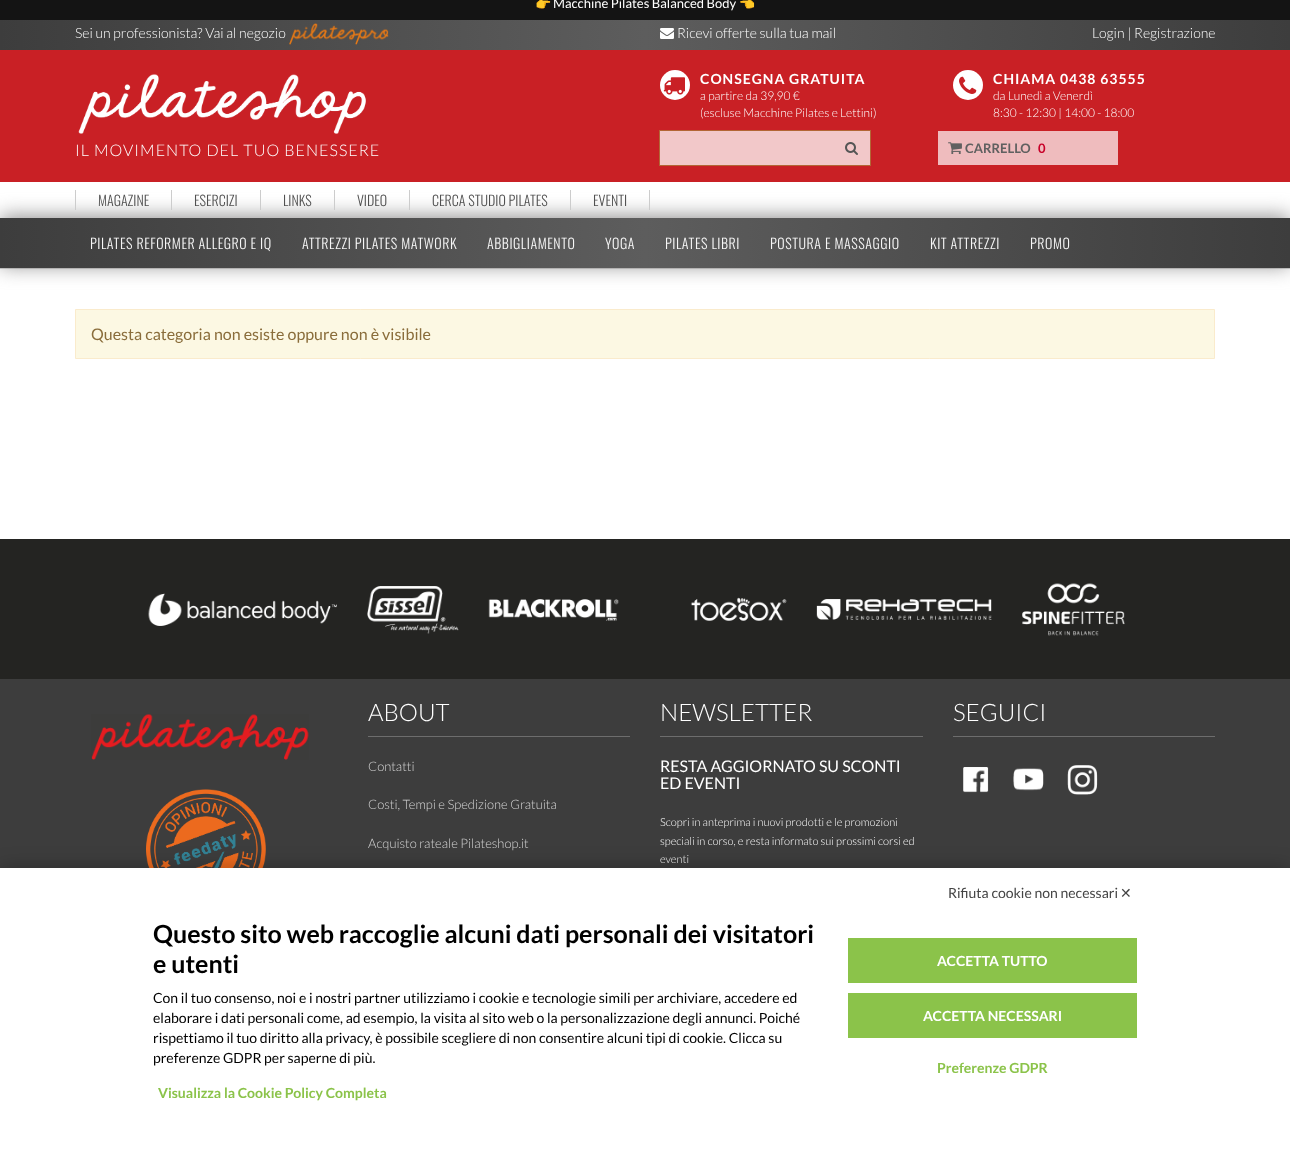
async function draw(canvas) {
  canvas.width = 1290;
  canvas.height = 1150;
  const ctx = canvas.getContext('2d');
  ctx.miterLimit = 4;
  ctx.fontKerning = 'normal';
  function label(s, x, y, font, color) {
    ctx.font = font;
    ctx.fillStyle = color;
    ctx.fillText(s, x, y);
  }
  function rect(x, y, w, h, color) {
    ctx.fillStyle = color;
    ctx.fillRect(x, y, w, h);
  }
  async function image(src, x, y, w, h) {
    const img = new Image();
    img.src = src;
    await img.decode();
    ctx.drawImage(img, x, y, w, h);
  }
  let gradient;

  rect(0, 0, 1290, 1150, '#fff');
  rect(0, 0, 1290, 20, '#141414');
  label('👉', 535, 8, '13px Noto Color Emoji', '#fff');
  label('Macchine Pilates Balanced Body', 553, 8, '13px Lato', '#fff');
  label('👈', 739, 8, '13px Noto Color Emoji', '#fff');
  rect(0, 268, 1290, 1, '#ccc');
  gradient = ctx.createLinearGradient(0, 35, 1290, 35);
  gradient.addColorStop(0, '#3d3d3d');
  gradient.addColorStop(0.5, '#5d5d5d');
  gradient.addColorStop(1, '#3d3d3d');
  ctx.fillStyle = gradient;
  ctx.fillRect(0, 20, 1290, 30);
  label('Sei un professionista? Vai al negozio', 75, 38, '300 14px Lato', '#fff');
  await image('assets/img1.png', 289, 23, 100, 22);
  await image('assets/img2.png', 660, 28, 14, 11);
  label('Ricevi offerte sulla tua mail', 677, 38, '300 14px Lato', '#fff');
  label('Login | Registrazione', 1092, 38, '300 14px Lato', '#fff');
  rect(0, 50, 1290, 132, '#c92025');
  await image('assets/img3.png', 78, 74, 288, 60);
  ctx.letterSpacing = '1px';
  label('IL MOVIMENTO DEL TUO BENESSERE', 75, 156, '300 16px Lato', '#fff');
  ctx.beginPath();
  ctx.arc(675, 85, 15, 0, 2 * Math.PI);
  ctx.fill();
  await image('assets/img4.png', 663, 77, 22, 18);
  label('CONSEGNA GRATUITA', 700, 84, 'bold 14px Lato', '#fff');
  ctx.letterSpacing = '0px';
  label('a partire da 39,90 €', 700, 100, '300 12px Lato', '#fff');
  label('(escluse Macchine Pilates e Lettini)', 700, 117, '300 12px Lato', '#fff');
  ctx.beginPath();
  ctx.arc(968, 85, 15, 0, 2 * Math.PI);
  ctx.fill();
  await image('assets/img5.png', 959, 76, 18, 18);
  ctx.letterSpacing = '1px';
  label('CHIAMA 0438 63555', 993, 84, 'bold 14px Lato', '#fff');
  ctx.letterSpacing = '0px';
  label('da Lunedì a Venerdì', 993, 100, '300 12px Lato', '#fff');
  label('8:30 - 12:30 | 14:00 - 18:00', 993, 117, '300 12px Lato', '#fff');
  ctx.fillStyle = '#b36635';
  ctx.filter = 'blur(0.5px)';
  ctx.beginPath();
  ctx.rect(659, 130, 212, 36);
  ctx.fill();
  ctx.filter = 'none';
  rect(660, 131, 210, 34, '#f2c8c9');
  await image('assets/img6.png', 845, 142, 13, 13);
  rect(938, 131, 180, 34, '#efbcbe');
  await image('assets/img7.png', 948, 142, 14, 12);
  label('CARRELLO', 965, 153, 'bold 13px Lato', '#606060');
  label('0', 1038, 153, 'bold 13px Lato', '#c80028');
  ctx.fillStyle = '#908f8f';
  ctx.filter = 'blur(10px)';
  ctx.beginPath();
  ctx.rect(0, 216, 1290, 50);
  ctx.fill();
  ctx.filter = 'none';
  rect(75, 190, 1, 20, '#ccc');
  label('MAGAZINE', 98, 206, '300 14px Oswald', '#505050');
  rect(171, 190, 1, 20, '#ccc');
  label('ESERCIZI', 194, 206, '300 14px Oswald', '#505050');
  rect(260, 190, 1, 20, '#ccc');
  label('LINKS', 283, 206, '300 14px Oswald', '#505050');
  rect(334, 190, 1, 20, '#ccc');
  label('VIDEO', 357, 206, '300 14px Oswald', '#505050');
  rect(409, 190, 1, 20, '#ccc');
  label('CERCA STUDIO PILATES', 432, 206, '300 14px Oswald', '#505050');
  rect(649, 190, 1, 20, '#ccc');
  rect(570, 190, 1, 20, '#ccc');
  label('EVENTI', 593, 206, '300 14px Oswald', '#505050');
  gradient = ctx.createLinearGradient(0, 243, 1290, 243);
  gradient.addColorStop(0, '#3d3d3d');
  gradient.addColorStop(0.5, '#5d5d5d');
  gradient.addColorStop(1, '#3d3d3d');
  ctx.fillStyle = gradient;
  ctx.fillRect(0, 218, 1290, 50);
  ctx.letterSpacing = '0.55px';
  label('PILATES REFORMER ALLEGRO E IQ', 90, 249, '300 14px Oswald', '#f7f7f7');
  label('ATTREZZI PILATES MATWORK', 302, 249, '300 14px Oswald', '#f7f7f7');
  label('ABBIGLIAMENTO', 487, 249, '300 14px Oswald', '#f7f7f7');
  label('YOGA', 605, 249, '300 14px Oswald', '#f7f7f7');
  label('PILATES LIBRI', 665, 249, '300 14px Oswald', '#f7f7f7');
  label('POSTURA E MASSAGGIO', 770, 249, '300 14px Oswald', '#f7f7f7');
  label('KIT ATTREZZI', 930, 249, '300 14px Oswald', '#f7f7f7');
  label('PROMO', 1030, 249, '300 14px Oswald', '#f7f7f7');
  ctx.fillStyle = '#fcf8e3';
  ctx.beginPath();
  ctx.rect(75.5, 309.5, 1139, 49);
  ctx.fill();
  ctx.strokeStyle = '#faebcc';
  ctx.stroke();
  ctx.letterSpacing = '0px';
  label('Questa categoria non esiste oppure non è visibile', 91, 340, '16px Lato', '#8a6d3b');
  rect(0, 539, 1290, 140, '#242422');
  await image('assets/img8.png', 148, 586, 471, 48);
  await image('assets/img9.png', 690, 583, 435, 53);
  rect(0, 679, 1290, 189, '#3d3d3d');
  await image('assets/img10.png', 91, 714, 218, 46);
  await image('assets/img11.png', 146, 789, 120, 79);
  rect(368, 736, 262, 1, '#6d6d6d');
  label('ABOUT', 368, 721, '300 24px Lato', '#fff');
  label('Contatti', 368, 771, '300 13px Lato', '#d4d4d4');
  label('Costi, Tempi e Spedizione Gratuita', 368, 809, '300 13px Lato', '#d4d4d4');
  label('Acquisto rateale Pilateshop.it', 368, 848, '300 13px Lato', '#d4d4d4');
  rect(660, 736, 263, 1, '#6d6d6d');
  label('NEWSLETTER', 660, 721, '300 24px Lato', '#fff');
  label('RESTA AGGIORNATO SU SCONTI', 660, 772, '16px Lato', '#fff');
  label('ED EVENTI', 660, 789, '16px Lato', '#fff');
  label('Scopri in anteprima i nuovi prodotti e le promozioni', 660, 826, '300 11.05px Lato', '#fff');
  label('speciali in corso, e resta informato sui prossimi corsi ed', 660, 845, '300 11.05px Lato', '#fff');
  label('eventi', 660, 863, '300 11.05px Lato', '#fff');
  rect(953, 736, 262, 1, '#6d6d6d');
  label('SEGUICI', 953, 721, '300 24px Lato', '#fff');
  await image('assets/img12.png', 963, 767, 26, 26);
  await image('assets/img13.png', 1013, 768, 31, 23);
  await image('assets/img14.png', 1067, 765, 31, 30);
  ctx.fillStyle = '#00000045';
  ctx.filter = 'blur(10px)';
  ctx.beginPath();
  ctx.rect(0, 868, 1290, 282);
  ctx.fill();
  ctx.filter = 'none';
  rect(0, 868, 1290, 282, '#fff');
  label('Rifiuta cookie non necessari', 948, 898, '14px Lato', '#444');
  label('✕', 1120, 898, '14px DejaVu Sans', '#444');
  label('Questo sito web raccoglie alcuni dati personali dei visitatori', 153, 943, 'bold 25px Lato', '#000');
  label('e utenti', 153, 973, 'bold 25px Lato', '#000');
  label('Con il tuo consenso, noi e i nostri partner utilizziamo i cookie e tecnologie simili per archiviare, accedere ed', 153, 1003, '14px Lato', '#000');
  label('elaborare i dati personali come, ad esempio, la visita al sito web o la personalizzazione degli annunci. Poiché', 153, 1023, '14px Lato', '#000');
  label('rispettiamo il tuo diritto alla privacy, è possibile scegliere di non consentire alcuni tipi di cookie. Clicca su', 153, 1043, '14px Lato', '#000');
  label('preferenze GDPR per saperne di più.', 153, 1063, '14px Lato', '#000');
  label('Visualizza la Cookie Policy Completa', 158, 1098, 'bold 14px Lato', '#8bc34a');
  rect(848, 938, 289, 45, '#8bc34a');
  label('ACCETTA TUTTO', 937, 966, 'bold 14px Lato', '#fff');
  rect(848, 993, 289, 45, '#8bc34a');
  label('ACCETTA NECESSARI', 923, 1021, 'bold 14px Lato', '#fff');
  label('Preferenze GDPR', 937, 1073, 'bold 14px Lato', '#8bc34a');
}

draw(document.querySelector('canvas'));
